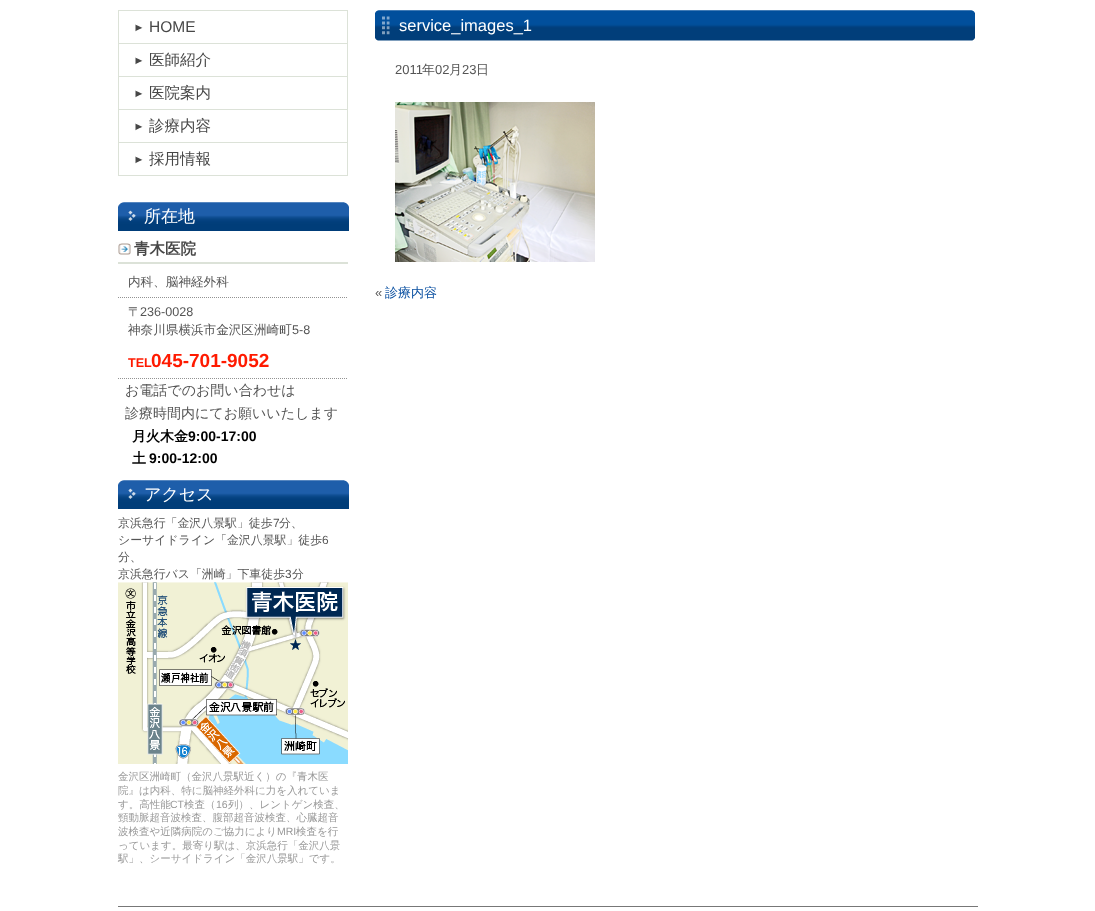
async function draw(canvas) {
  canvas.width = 1095;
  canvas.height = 911;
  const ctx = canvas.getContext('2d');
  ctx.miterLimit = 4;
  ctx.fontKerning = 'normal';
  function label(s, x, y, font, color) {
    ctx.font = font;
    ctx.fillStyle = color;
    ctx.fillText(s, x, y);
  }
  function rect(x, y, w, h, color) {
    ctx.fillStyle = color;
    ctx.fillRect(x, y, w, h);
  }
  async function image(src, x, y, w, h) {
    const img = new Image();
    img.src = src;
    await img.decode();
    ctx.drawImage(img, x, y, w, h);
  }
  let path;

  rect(0, 0, 1095, 911, '#fff');
  rect(118, 175, 230, 1, '#dce2d8');
  await image('assets/img1.png', 135, 24, 8, 8);
  rect(118, 10, 230, 1, '#dce2d8');
  rect(347, 10, 1, 33, '#dce2d8');
  rect(118, 10, 1, 33, '#dce2d8');
  label('HOME', 149, 32, '15.5px Liberation Sans', '#474747');
  await image('assets/img1.png', 135, 57, 8, 8);
  rect(118, 43, 230, 1, '#dce2d8');
  rect(347, 43, 1, 33, '#dce2d8');
  rect(118, 43, 1, 33, '#dce2d8');
  label('医師紹介', 149, 65, '500 15.5px WenQuanYi Zen Hei', '#474747');
  await image('assets/img1.png', 135, 90, 8, 8);
  rect(118, 76, 230, 1, '#dce2d8');
  rect(347, 76, 1, 33, '#dce2d8');
  rect(118, 76, 1, 33, '#dce2d8');
  label('医院案内', 149, 98, '500 15.5px WenQuanYi Zen Hei', '#474747');
  await image('assets/img1.png', 135, 123, 8, 8);
  rect(118, 109, 230, 1, '#dce2d8');
  rect(347, 109, 1, 33, '#dce2d8');
  rect(118, 109, 1, 33, '#dce2d8');
  label('診療内容', 149, 131, '500 15.5px WenQuanYi Zen Hei', '#474747');
  await image('assets/img1.png', 135, 156, 8, 8);
  rect(118, 142, 230, 1, '#dce2d8');
  rect(347, 142, 1, 33, '#dce2d8');
  rect(118, 142, 1, 33, '#dce2d8');
  label('採用情報', 149, 164, '500 15.5px WenQuanYi Zen Hei', '#474747');
  await image('assets/img2.png', 118, 202, 231, 29);
  label('所在地', 144, 222, '500 17px WenQuanYi Zen Hei', '#fff');
  await image('assets/img3.png', 118, 243, 13, 12);
  rect(118, 262, 230, 2, '#dce2d8');
  label('青木医院', 134, 254, 'bold 15.5px WenQuanYi Zen Hei', '#474747');
  path = new Path2D('M118 297.5H348');
  ctx.strokeStyle = '#929292';
  ctx.setLineDash([1, 1]);
  ctx.stroke(path);
  label('内科、脳神経外科', 128, 286, '500 12.6px WenQuanYi Zen Hei', '#555');
  label('〒', 128, 316, '500 12.6px WenQuanYi Zen Hei', '#555');
  label('236-0028', 140, 316, '12.6px Liberation Sans', '#555');
  label('神奈川県横浜市金沢区洲崎町', 128, 334, '500 12.6px WenQuanYi Zen Hei', '#555');
  label('5-8', 292, 334, '12.6px Liberation Sans', '#555');
  path = new Path2D('M118 378.5H348');
  ctx.stroke(path);
  label('TEL', 128, 367, 'bold 12.6px Liberation Sans', '#ff1a00');
  label('045-701-9052', 151, 367, 'bold 19px Liberation Sans', '#ff1a00');
  label('お電話でのお問い合わせは', 125, 395, '500 14px WenQuanYi Zen Hei', '#555');
  label('診療時間内にてお願いいたします', 125, 418, '500 14px WenQuanYi Zen Hei', '#555');
  label('月火木金', 132, 441, 'bold 14px WenQuanYi Zen Hei', '#000');
  label('9:00-17:00', 188, 441, 'bold 14px Liberation Sans', '#000');
  label('土', 132, 463, 'bold 14px WenQuanYi Zen Hei', '#000');
  label('9:00-12:00', 149, 463, 'bold 14px Liberation Sans', '#000');
  await image('assets/img2.png', 118, 480, 231, 29);
  label('アクセス', 144, 500, '500 17px WenQuanYi Zen Hei', '#fff');
  label('京浜急行「金沢八景駅」徒歩', 118, 527, '500 11.9px WenQuanYi Zen Hei', '#555');
  label('7', 273, 527, '11.9px Liberation Sans', '#555');
  label('分、', 279, 527, '500 11.9px WenQuanYi Zen Hei', '#555');
  label('シーサイドライン「金沢八景駅」徒歩', 118, 544, '500 11.9px WenQuanYi Zen Hei', '#555');
  label('6', 322, 544, '11.9px Liberation Sans', '#555');
  label('分、', 118, 561, '500 11.9px WenQuanYi Zen Hei', '#555');
  label('京浜急行バス「洲崎」下車徒歩', 118, 578, '500 11.9px WenQuanYi Zen Hei', '#555');
  label('3', 285, 578, '11.9px Liberation Sans', '#555');
  label('分', 292, 578, '500 11.9px WenQuanYi Zen Hei', '#555');
  await image('assets/img4.png', 118, 582, 230, 182);
  label('金沢区洲崎町（金沢八景駅近く）の『青木医', 118, 780, '500 10.5px WenQuanYi Zen Hei', '#999');
  label('院』は内科、特に脳神経外科に力を入れていま', 118, 794, '500 10.5px WenQuanYi Zen Hei', '#999');
  label('す。高性能', 118, 808, '500 10.5px WenQuanYi Zen Hei', '#999');
  label('CT', 170, 808, '10.5px Liberation Sans', '#999');
  label('検査（', 184, 808, '500 10.5px WenQuanYi Zen Hei', '#999');
  label('16', 216, 808, '10.5px Liberation Sans', '#999');
  label('列）、レントゲン検査、', 228, 808, '500 10.5px WenQuanYi Zen Hei', '#999');
  label('頸動脈超音波検査、腹部超音波検査、心臓超音', 118, 821, '500 10.5px WenQuanYi Zen Hei', '#999');
  label('波検査や近隣病院のご協力により', 118, 835, '500 10.5px WenQuanYi Zen Hei', '#999');
  label('MRI', 277, 835, '10.5px Liberation Sans', '#999');
  label('検査を行', 296, 835, '500 10.5px WenQuanYi Zen Hei', '#999');
  label('っています。最寄り駅は、京浜急行「金沢八景', 118, 849, '500 10.5px WenQuanYi Zen Hei', '#999');
  label('駅」、シーサイドライン「金沢八景駅」です。', 118, 862, '500 10.5px WenQuanYi Zen Hei', '#999');
  await image('assets/img5.png', 375, 10, 600, 31);
  label('service_images_1', 399, 31, '16.5px Liberation Sans', '#fff');
  label('2011', 395, 74, '13px Liberation Sans', '#555');
  label('年', 422, 74, '500 13px WenQuanYi Zen Hei', '#555');
  label('02', 435, 74, '13px Liberation Sans', '#555');
  label('月', 449, 74, '500 13px WenQuanYi Zen Hei', '#555');
  label('23', 462, 74, '13px Liberation Sans', '#555');
  label('日', 476, 74, '500 13px WenQuanYi Zen Hei', '#555');
  await image('assets/img6.png', 395, 102, 200, 160);
  label('«', 375, 297, '13px Liberation Sans', '#555');
  label('診療内容', 385, 297, '500 13px WenQuanYi Zen Hei', '#0a50a1');
  rect(118, 906, 860, 1, '#777');
}

draw(document.querySelector('canvas'));
